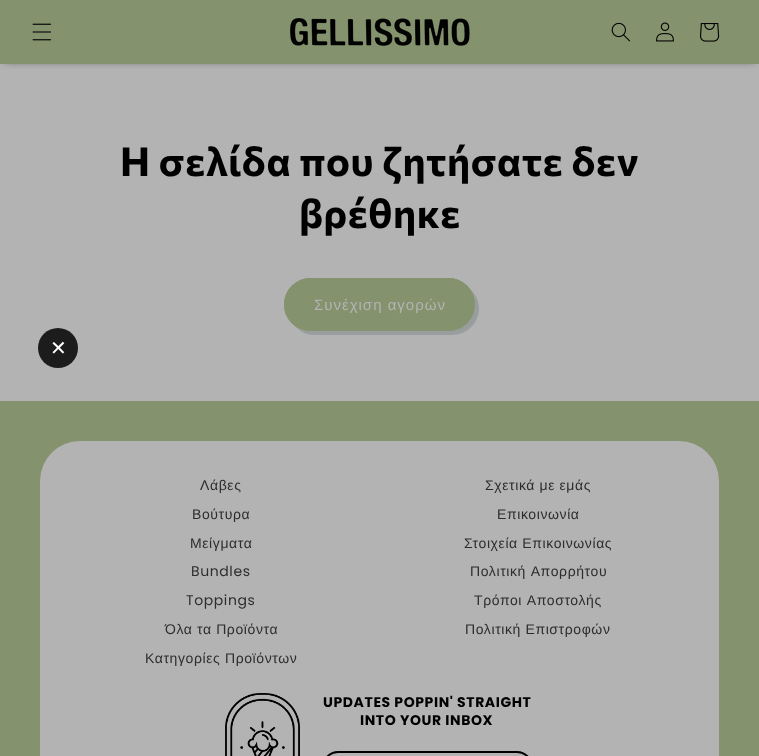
async function draw(canvas) {
  canvas.width = 759;
  canvas.height = 756;
  const ctx = canvas.getContext('2d');
  ctx.miterLimit = 4;
  ctx.fontKerning = 'normal';
  function label(s, x, y, font, color) {
    ctx.font = font;
    ctx.fillStyle = color;
    ctx.fillText(s, x, y);
  }
  function rect(x, y, w, h, color) {
    ctx.fillStyle = color;
    ctx.fillRect(x, y, w, h);
  }
  function roundedRect(x, y, w, h, r, color) {
    ctx.fillStyle = color;
    ctx.beginPath();
    ctx.roundRect(x, y, w, h, r);
    ctx.fill();
  }
  async function image(src, x, y, w, h) {
    const img = new Image();
    img.src = src;
    await img.decode();
    ctx.drawImage(img, x, y, w, h);
  }
  let path;

  rect(0, 0, 759, 756, '#b3b3b3');
  ctx.fillStyle = '#000';
  ctx.filter = 'blur(5px)';
  ctx.beginPath();
  ctx.rect(5, 5, 749, 54);
  ctx.fill();
  ctx.filter = 'none';
  rect(0, 0, 759, 64, '#84926d');
  await image('assets/img1.png', 32, 23, 20, 18);
  await image('assets/img2.png', 290, 18, 180, 28);
  await image('assets/img3.png', 611, 22, 19, 20);
  await image('assets/img4.png', 656, 22, 18, 20);
  await image('assets/img5.png', 700, 23, 20, 19);
  ctx.letterSpacing = '0.6px';
  label('Η σελίδα που ζητήσατε δεν', 120, 176, '100 40px Commissioner', '#000');
  label('βρέθηκε', 299, 228, '100 40px Commissioner', '#000');
  roundedRect(284, 278, 191, 53, 26.5, '#84926d');
  ctx.fillStyle = '#989e9e';
  path = new Path2D('M294 325C299 331 306 335 314 335H452C467 335 479 323 479 308C479 300 475 293 469 288C473 292 475 298 475 304C475 319 463 331 448 331H310C304 331 298 329 294 325Z');
  ctx.fill(path);
  ctx.beginPath();
  ctx.roundRect(286, 280, 187, 49, 24.5);
  ctx.strokeStyle = '#84926d';
  ctx.lineWidth = 4;
  ctx.stroke();
  ctx.letterSpacing = '1px';
  label('Συνέχιση αγορών', 314, 310, '15px Liberation Sans', '#b3b3b3');
  ctx.fillStyle = '#1c1c1c';
  ctx.beginPath();
  ctx.arc(58, 348, 20, 0, 2 * Math.PI);
  ctx.fill();
  ctx.letterSpacing = '0px';
  label('✕', 50, 355, '20px DejaVu Sans', '#fff');
  rect(0, 401, 759, 355, '#84926d');
  roundedRect(40, 441, 679, 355, 40, '#b3b3b3');
  ctx.letterSpacing = '0.6px';
  label('Λάβες', 200, 490, '14px Liberation Sans', '#2d2d2d');
  label('Σχετικά με εμάς', 485, 490, '14px Liberation Sans', '#2d2d2d');
  label('Βούτυρα', 192, 519, '14px Liberation Sans', '#2d2d2d');
  label('Επικοινωνία', 497, 519, '14px Liberation Sans', '#2d2d2d');
  label('Μείγματα', 190, 548, '14px Liberation Sans', '#2d2d2d');
  label('Στοιχεία Επικοινωνίας', 464, 548, '14px Liberation Sans', '#2d2d2d');
  label('Bundles', 191, 576, '14px Poppins', '#2d2d2d');
  ctx.wordSpacing = '1px';
  label('Πολιτική Απορρήτου', 470, 576, '14px Liberation Sans', '#2d2d2d');
  ctx.wordSpacing = '0px';
  label('Toppings', 186, 605, '14px Poppins', '#2d2d2d');
  ctx.wordSpacing = '1px';
  label('Τρόποι Αποστολής', 474, 605, '14px Liberation Sans', '#2d2d2d');
  ctx.wordSpacing = '0px';
  label('Όλα τα Προϊόντα', 165, 634, '14px Liberation Sans', '#2d2d2d');
  label('Πολιτική Επιστροφών', 465, 634, '14px Liberation Sans', '#2d2d2d');
  label('Κατηγορίες Προϊόντων', 145, 663, '14px Liberation Sans', '#2d2d2d');
  await image('assets/img6.png', 225, 693, 75, 63);
  label('UPDATES POPPIN\' STRAIGHT', 323, 707, 'bold 14px Poppins', '#000');
  label('INTO YOUR INBOX', 360, 725, 'bold 14px Poppins', '#000');
  ctx.beginPath();
  ctx.roundRect(323, 752, 209, 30, 23.5);
  ctx.strokeStyle = '#000';
  ctx.lineWidth = 2;
  ctx.stroke();
}

draw(document.querySelector('canvas'));
